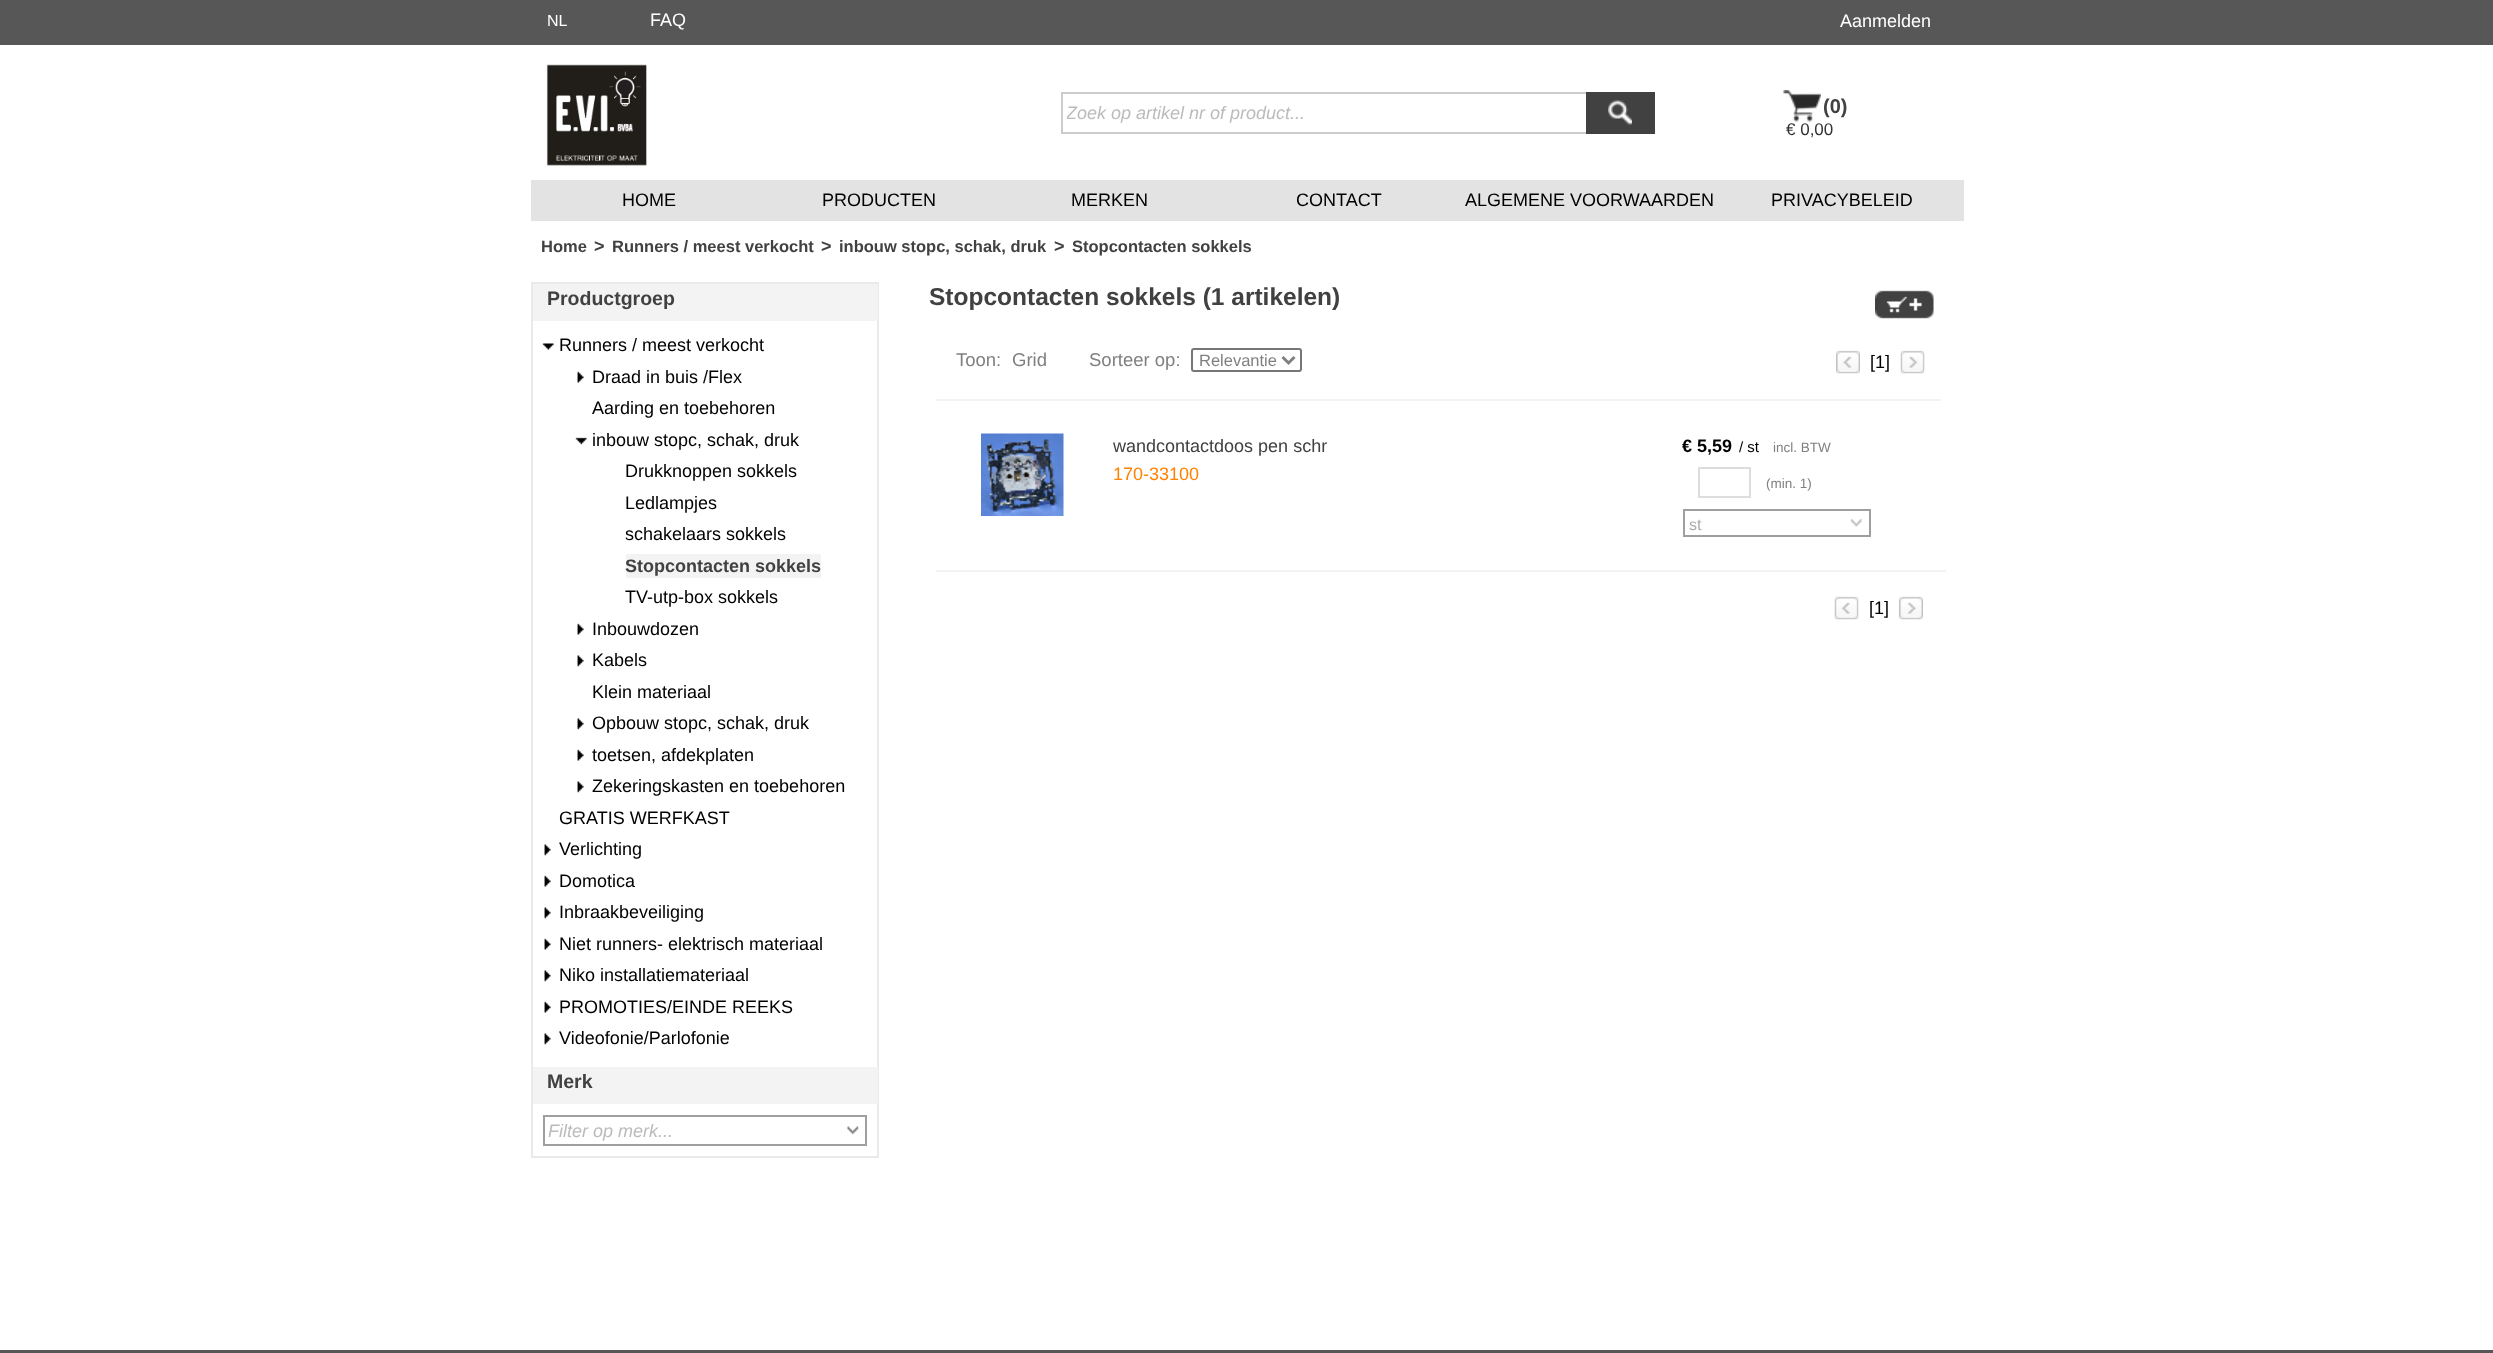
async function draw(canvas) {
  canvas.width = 2493;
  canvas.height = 1353;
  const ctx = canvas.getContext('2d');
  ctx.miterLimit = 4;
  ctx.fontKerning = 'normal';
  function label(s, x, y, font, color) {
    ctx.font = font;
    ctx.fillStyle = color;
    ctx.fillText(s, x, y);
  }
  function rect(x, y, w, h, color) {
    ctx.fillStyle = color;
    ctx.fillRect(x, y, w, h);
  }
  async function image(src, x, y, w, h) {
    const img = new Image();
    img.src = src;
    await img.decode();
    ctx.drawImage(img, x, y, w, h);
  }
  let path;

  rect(0, 0, 2493, 1353, '#fff');
  rect(0, 0, 2493, 45, '#575757');
  label('NL', 547, 26, '16px Liberation Sans', '#fff');
  label('FAQ', 650, 26, '18px Liberation Sans', '#fff');
  label('Aanmelden', 1840, 27, '18px Liberation Sans', '#fff');
  await image('assets/img1.png', 546, 64, 101, 102);
  rect(1061, 92, 525, 2, '#ccc');
  rect(1061, 132, 525, 2, '#ccc');
  rect(1061, 92, 2, 42, '#ccc');
  ctx.save();
  ctx.beginPath();
  ctx.rect(1067, 104, 514, 21);
  ctx.clip();
  label('Zoek op artikel nr of product...', 1066, 119, 'italic 18px Liberation Sans', '#bbb');
  ctx.restore();
  rect(1586, 92, 69, 42, '#414141');
  await image('assets/img2.png', 1608, 100, 24, 25);
  await image('assets/img3.png', 1783, 90, 38, 32);
  label('(0)', 1823, 113, 'bold 20px Liberation Sans', '#414141');
  label('€ 0,00', 1786, 135, '17px Liberation Sans', '#333');
  rect(531, 180, 1433, 41, '#e3e3e3');
  label('HOME', 622, 206, '18px Liberation Sans', '#000');
  label('PRODUCTEN', 822, 206, '18px Liberation Sans', '#000');
  label('MERKEN', 1071, 206, '18px Liberation Sans', '#000');
  label('CONTACT', 1296, 206, '18px Liberation Sans', '#000');
  label('ALGEMENE VOORWAARDEN', 1465, 206, '18px Liberation Sans', '#000');
  label('PRIVACYBELEID', 1771, 206, '18px Liberation Sans', '#000');
  label('Home', 541, 252, 'bold 16.5px Liberation Sans', '#414141');
  label('>', 594, 252, 'bold 18px Liberation Sans', '#414141');
  label('Runners / meest verkocht', 612, 252, 'bold 16.5px Liberation Sans', '#414141');
  label('>', 821, 252, 'bold 18px Liberation Sans', '#414141');
  label('inbouw stopc, schak, druk', 839, 252, 'bold 16.5px Liberation Sans', '#414141');
  label('>', 1054, 252, 'bold 18px Liberation Sans', '#414141');
  label('Stopcontacten sokkels', 1072, 252, 'bold 16.5px Liberation Sans', '#414141');
  ctx.strokeStyle = '#eaeaea';
  ctx.lineWidth = 2;
  ctx.strokeRect(532, 283, 346, 874);
  rect(533, 284, 345, 37, '#f3f3f3');
  label('Productgroep', 547, 305, 'bold 19.5px Liberation Sans', '#414141');
  await image('assets/img4.png', 542, 343, 12, 7);
  label('Runners / meest verkocht', 559, 351, '18px Liberation Sans', '#000');
  await image('assets/img5.png', 577, 371, 7, 12);
  label('Draad in buis /Flex', 592, 383, '18px Liberation Sans', '#000');
  label('Aarding en toebehoren', 592, 414, '18px Liberation Sans', '#000');
  await image('assets/img6.png', 575, 437, 12, 8);
  label('inbouw stopc, schak, druk', 592, 446, '18px Liberation Sans', '#000');
  label('Drukknoppen sokkels', 625, 477, '18px Liberation Sans', '#000');
  label('Ledlampjes', 625, 509, '18px Liberation Sans', '#000');
  label('schakelaars sokkels', 625, 540, '18px Liberation Sans', '#000');
  rect(626, 554, 195, 24, '#f3f3f3');
  label('Stopcontacten sokkels', 625, 572, 'bold 18px Liberation Sans', '#414141');
  label('TV-utp-box sokkels', 625, 603, '18px Liberation Sans', '#000');
  await image('assets/img5.png', 577, 623, 7, 12);
  label('Inbouwdozen', 592, 635, '18px Liberation Sans', '#000');
  await image('assets/img7.png', 577, 655, 7, 12);
  label('Kabels', 592, 666, '18px Liberation Sans', '#000');
  label('Klein materiaal', 592, 698, '18px Liberation Sans', '#000');
  await image('assets/img7.png', 577, 718, 7, 12);
  label('Opbouw stopc, schak, druk', 592, 729, '18px Liberation Sans', '#000');
  await image('assets/img5.png', 577, 749, 7, 12);
  label('toetsen, afdekplaten', 592, 761, '18px Liberation Sans', '#000');
  await image('assets/img7.png', 577, 781, 7, 12);
  label('Zekeringskasten en toebehoren', 592, 792, '18px Liberation Sans', '#000');
  label('GRATIS WERFKAST', 559, 824, '18px Liberation Sans', '#000');
  await image('assets/img7.png', 544, 844, 7, 12);
  label('Verlichting', 559, 855, '18px Liberation Sans', '#000');
  await image('assets/img5.png', 544, 875, 7, 12);
  label('Domotica', 559, 887, '18px Liberation Sans', '#000');
  await image('assets/img7.png', 544, 907, 7, 12);
  label('Inbraakbeveiliging', 559, 918, '18px Liberation Sans', '#000');
  await image('assets/img5.png', 544, 938, 7, 12);
  label('Niet runners- elektrisch materiaal', 559, 950, '18px Liberation Sans', '#000');
  await image('assets/img7.png', 544, 970, 7, 12);
  label('Niko installatiemateriaal', 559, 981, '18px Liberation Sans', '#000');
  await image('assets/img5.png', 544, 1001, 7, 12);
  label('PROMOTIES/EINDE REEKS', 559, 1013, '18px Liberation Sans', '#000');
  await image('assets/img7.png', 544, 1033, 7, 12);
  label('Videofonie/Parlofonie', 559, 1044, '18px Liberation Sans', '#000');
  rect(533, 1067, 345, 37, '#f3f3f3');
  label('Merk', 547, 1088, 'bold 19.5px Liberation Sans', '#414141');
  ctx.strokeStyle = '#9f9f9f';
  ctx.strokeRect(544, 1116, 322, 29);
  label('Filter op merk...', 548, 1137, 'italic 18px Liberation Sans', '#bbb');
  await image('assets/img8.png', 847, 1126, 12, 9);
  label('Stopcontacten sokkels (1 artikelen)', 929, 305, 'bold 24.5px Liberation Sans', '#414141');
  await image('assets/img9.png', 1875, 290, 59, 29);
  label('Toon:', 956, 366, '18.5px Liberation Sans', '#808080');
  label('Grid', 1012, 366, '18.5px Liberation Sans', '#808080');
  label('Sorteer op:', 1089, 366, '18.5px Liberation Sans', '#808080');
  ctx.beginPath();
  ctx.roundRect(1192, 349, 109, 22, 2);
  ctx.strokeStyle = '#767676';
  ctx.stroke();
  path = new Path2D('M1282.5 357L1288.5 363L1294.5 357');
  ctx.strokeStyle = '#808080';
  ctx.lineWidth = 3;
  ctx.stroke(path);
  label('Relevantie', 1199, 366, '16.5px Liberation Sans', '#808080');
  await image('assets/img10.png', 1836, 350, 24, 24);
  label('[1]', 1870, 368, '18px Liberation Sans', '#000');
  await image('assets/img11.png', 1900, 350, 25, 24);
  rect(936, 399, 1005, 2, '#f3f3f3');
  rect(936, 570, 1010, 2, '#f3f3f3');
  await image('assets/img12.png', 981, 433, 83, 83);
  label('wandcontactdoos pen schr', 1113, 452, '18px Liberation Sans', '#414141');
  label('170-33100', 1113, 480, '18px Liberation Sans', '#ff8200');
  label('€ 5,59', 1682, 452, 'bold 18px Liberation Sans', '#000');
  label('/ st', 1739, 452, '15px Liberation Sans', '#000');
  label('incl. BTW', 1773, 452, '13.5px Liberation Sans', '#808080');
  ctx.strokeStyle = '#ddd';
  ctx.lineWidth = 2;
  ctx.strokeRect(1699, 468, 51, 29);
  label('(min. 1)', 1766, 488, '13.5px Liberation Sans', '#808080');
  ctx.strokeStyle = '#9f9f9f';
  ctx.strokeRect(1684, 510, 186, 26);
  label('st', 1689, 530, '16px Liberation Sans', '#acacac');
  await image('assets/img13.png', 1850, 518, 12, 9);
  await image('assets/img14.png', 1834, 596, 25, 24);
  label('[1]', 1869, 614, '18px Liberation Sans', '#000');
  await image('assets/img15.png', 1899, 596, 24, 24);
  rect(0, 1350, 2493, 3, '#575757');
}

draw(document.querySelector('canvas'));
